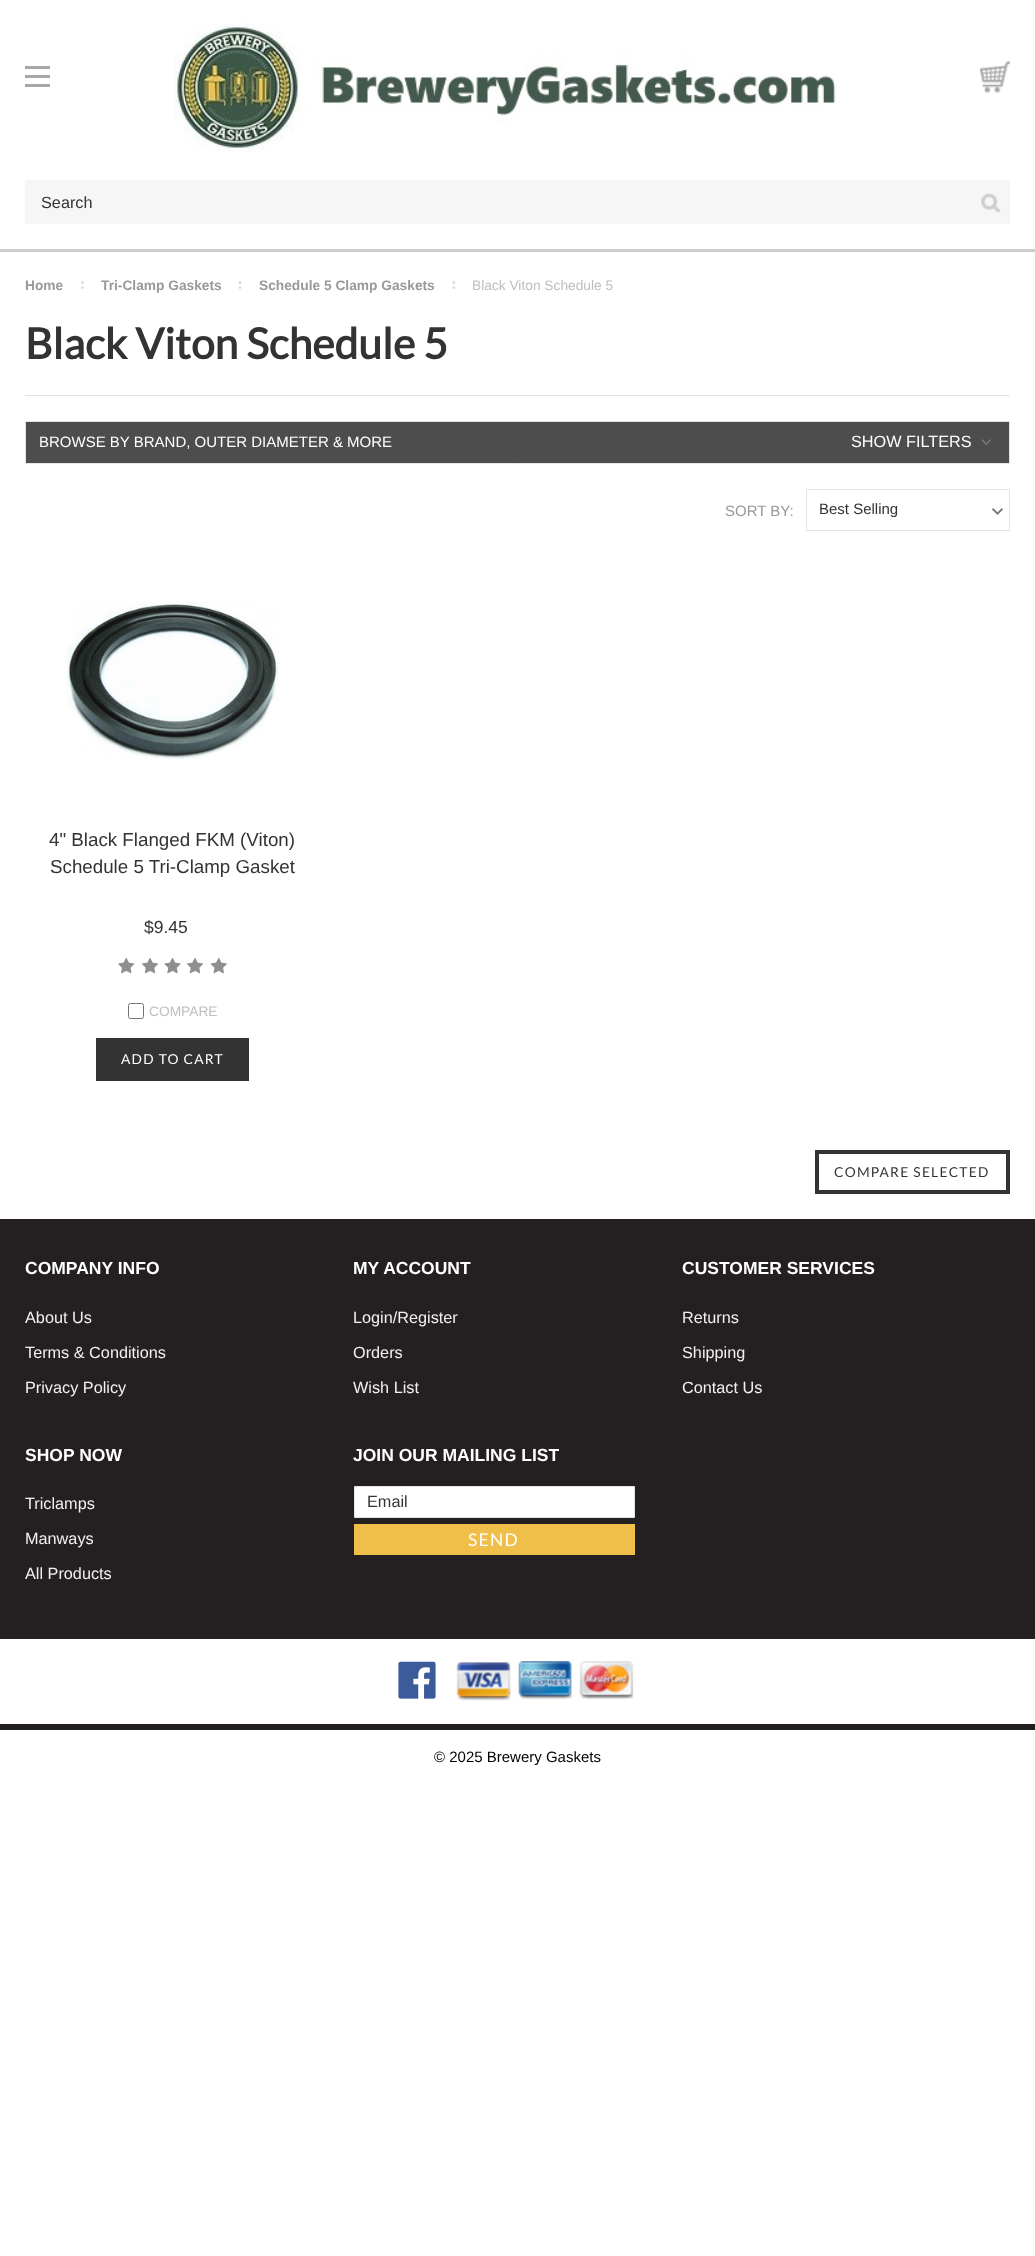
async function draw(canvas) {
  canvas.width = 1035;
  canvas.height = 2256;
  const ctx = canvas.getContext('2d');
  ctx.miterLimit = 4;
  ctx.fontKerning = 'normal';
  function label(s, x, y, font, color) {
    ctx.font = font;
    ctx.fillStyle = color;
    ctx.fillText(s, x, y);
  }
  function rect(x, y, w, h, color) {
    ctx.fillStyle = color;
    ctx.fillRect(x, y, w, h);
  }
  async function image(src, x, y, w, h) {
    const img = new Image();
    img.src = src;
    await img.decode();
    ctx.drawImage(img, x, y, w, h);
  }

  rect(0, 0, 1035, 2256, '#fff');
  rect(25, 75, 25, 3, '#a7a7a7');
  rect(25, 66, 25, 3, '#a7a7a7');
  rect(25, 84, 25, 3, '#a7a7a7');
  await image('assets/img1.png', 174, 23, 662, 129);
  await image('assets/img2.png', 980, 61, 30, 32);
  rect(25, 180, 985, 44, '#f6f6f6');
  label('Search', 41, 208, '16.25px Liberation Sans', '#333');
  await image('assets/img3.png', 981, 193, 20, 20);
  rect(0, 249, 1035, 3, '#ccc');
  label('Home', 25, 290, 'bold 13.75px Liberation Sans', '#999');
  await image('assets/img4.png', 81, 281, 3, 8);
  label('Tri-Clamp Gaskets', 101, 290, 'bold 13.75px Liberation Sans', '#999');
  await image('assets/img5.png', 238, 281, 4, 8);
  label('Schedule 5 Clamp Gaskets', 259, 290, 'bold 13.75px Liberation Sans', '#999');
  await image('assets/img6.png', 452, 281, 4, 8);
  label('Black Viton Schedule 5', 472, 290, '13.75px Liberation Sans', '#bebebe');
  rect(25, 395, 985, 1, '#e3e3e3');
  label('Black Viton Schedule 5', 25, 359, 'bold 42.5px Lato', '#333');
  ctx.fillStyle = '#4d4d4d';
  ctx.beginPath();
  ctx.rect(25.5, 421.5, 984, 42);
  ctx.fill();
  ctx.strokeStyle = '#e5e5e5';
  ctx.stroke();
  label('BROWSE BY BRAND, OUTER DIAMETER & MORE', 39, 447, '15px Liberation Sans', '#fff');
  label('SHOW FILTERS', 851, 447, '16.25px Liberation Sans', '#fff');
  await image('assets/img7.png', 981, 439, 10, 6);
  label('SORT BY:', 725, 516, '15px Liberation Sans', '#999');
  await image('assets/img8.png', 992, 508, 11, 7);
  ctx.strokeStyle = '#e3e3e3';
  ctx.strokeRect(806.5, 489.5, 203, 41);
  label('Best Selling', 819, 514, '15px Liberation Sans', '#333');
  await image('assets/img9.png', 66, 601, 213, 158);
  label('4" Black Flanged FKM (Viton)', 49, 846, '18.75px Liberation Sans', '#333');
  label('Schedule 5 Tri-Clamp Gasket', 50, 873, '18.75px Liberation Sans', '#333');
  label('$9.45', 144, 933, '17.5px Liberation Sans', '#333');
  await image('assets/img10.png', 118, 958, 17, 16);
  await image('assets/img11.png', 142, 958, 16, 16);
  await image('assets/img12.png', 164, 958, 17, 16);
  await image('assets/img11.png', 187, 958, 16, 16);
  await image('assets/img13.png', 210, 958, 17, 16);
  ctx.beginPath();
  ctx.roundRect(128.5, 1003.5, 15, 15, 2);
  ctx.strokeStyle = '#767676';
  ctx.stroke();
  label('COMPARE', 149, 1016, '13.75px Liberation Sans', '#bebebe');
  rect(96, 1038, 153, 43, '#333');
  ctx.letterSpacing = '1.25px';
  label('ADD TO CART', 121, 1064, '13.75px Lato', '#fff');
  ctx.strokeStyle = '#333';
  ctx.lineWidth = 4;
  ctx.strokeRect(817, 1152, 191, 40);
  label('COMPARE SELECTED', 834, 1177, '13.75px Lato', '#333');
  rect(0, 1219, 1035, 420, '#241f21');
  ctx.letterSpacing = '0px';
  label('COMPANY INFO', 25, 1274, 'bold 17.5px Liberation Sans', '#fff');
  label('About Us', 25, 1323, '16.25px Liberation Sans', '#f1f1f1');
  label('Terms & Conditions', 25, 1358, '16.25px Liberation Sans', '#f1f1f1');
  label('Privacy Policy', 25, 1393, '16.25px Liberation Sans', '#f1f1f1');
  label('MY ACCOUNT', 353, 1274, 'bold 17.5px Liberation Sans', '#fff');
  label('Login/Register', 353, 1323, '16.25px Liberation Sans', '#f1f1f1');
  label('Orders', 353, 1358, '16.25px Liberation Sans', '#f1f1f1');
  label('Wish List', 353, 1393, '16.25px Liberation Sans', '#f1f1f1');
  label('CUSTOMER SERVICES', 682, 1274, 'bold 17.5px Liberation Sans', '#fff');
  label('Returns', 682, 1323, '16.25px Liberation Sans', '#f1f1f1');
  label('Shipping', 682, 1358, '16.25px Liberation Sans', '#f1f1f1');
  label('Contact Us', 682, 1393, '16.25px Liberation Sans', '#f1f1f1');
  label('SHOP NOW', 25, 1461, 'bold 17.5px Liberation Sans', '#fff');
  label('Triclamps', 25, 1509, '16.25px Liberation Sans', '#f1f1f1');
  label('Manways', 25, 1544, '16.25px Liberation Sans', '#f1f1f1');
  label('All Products', 25, 1579, '16.25px Liberation Sans', '#f1f1f1');
  label('JOIN OUR MAILING LIST', 353, 1461, 'bold 17.5px Liberation Sans', '#fff');
  ctx.beginPath();
  ctx.rect(354.5, 1486.5, 280, 31);
  ctx.fill();
  ctx.strokeStyle = '#e3e3e3';
  ctx.lineWidth = 1;
  ctx.stroke();
  label('Email', 367, 1507, '16.25px Liberation Sans', '#333');
  rect(354, 1524, 281, 31, '#f0bf4a');
  ctx.letterSpacing = '1.25px';
  label('SEND', 468, 1546, '17.5px Lato', '#fff');
  await image('assets/img14.png', 398, 1661, 38, 38);
  await image('assets/img15.png', 456, 1661, 178, 40);
  rect(0, 1724, 1035, 6, '#241f21');
  ctx.letterSpacing = '0px';
  label('© 2025 Brewery Gaskets', 434, 1762, '15px Liberation Sans', '#000');
}

draw(document.querySelector('canvas'));
